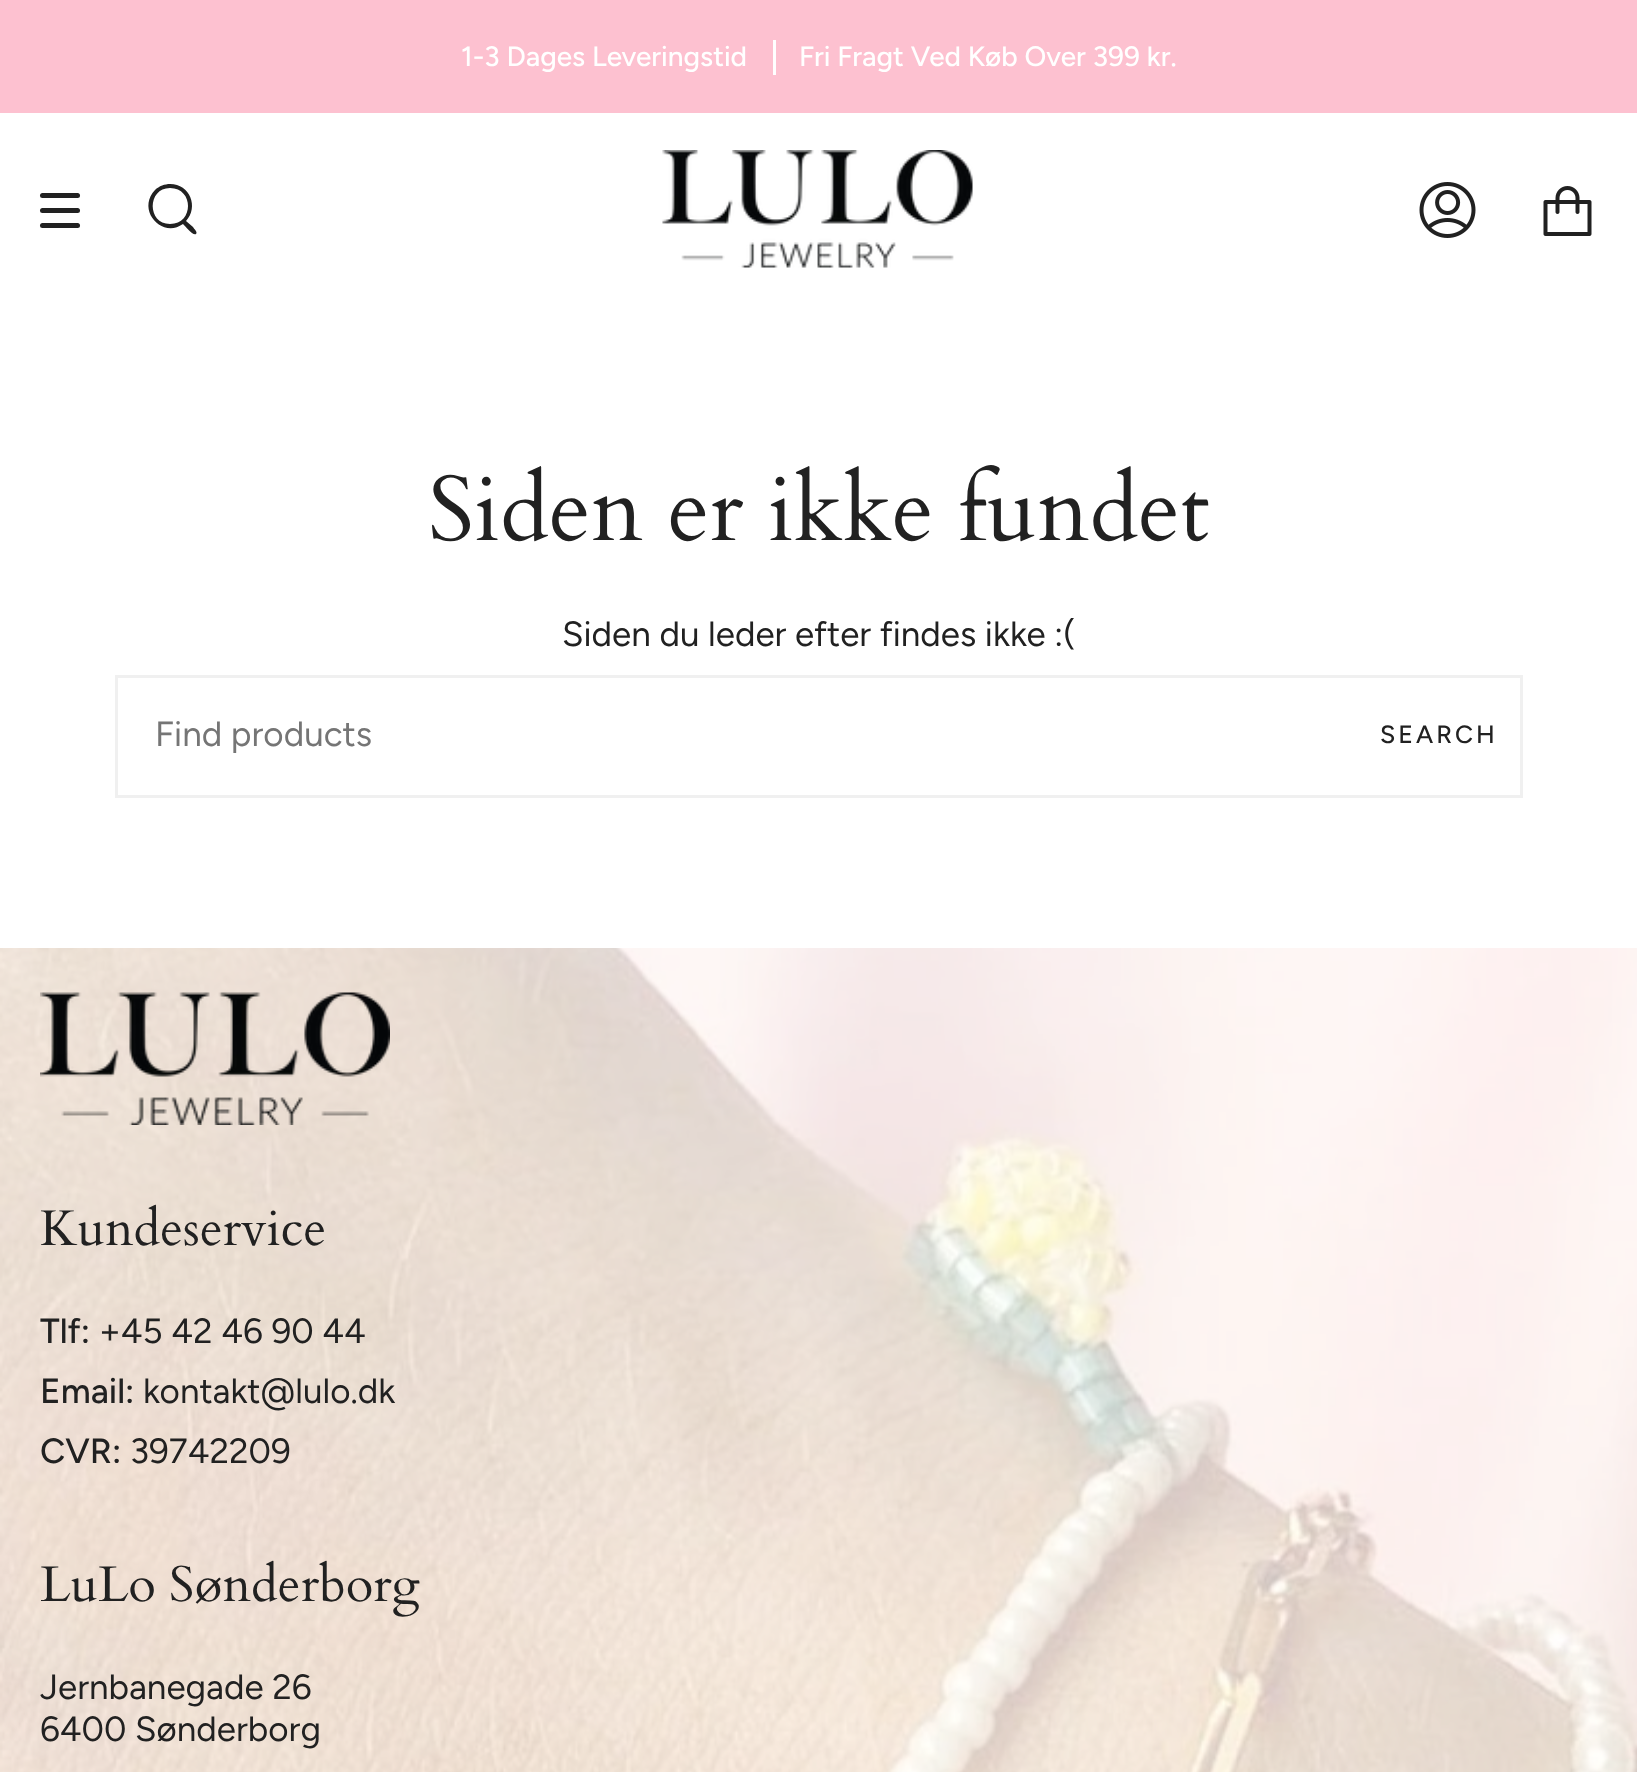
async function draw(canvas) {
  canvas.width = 1637;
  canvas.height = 1772;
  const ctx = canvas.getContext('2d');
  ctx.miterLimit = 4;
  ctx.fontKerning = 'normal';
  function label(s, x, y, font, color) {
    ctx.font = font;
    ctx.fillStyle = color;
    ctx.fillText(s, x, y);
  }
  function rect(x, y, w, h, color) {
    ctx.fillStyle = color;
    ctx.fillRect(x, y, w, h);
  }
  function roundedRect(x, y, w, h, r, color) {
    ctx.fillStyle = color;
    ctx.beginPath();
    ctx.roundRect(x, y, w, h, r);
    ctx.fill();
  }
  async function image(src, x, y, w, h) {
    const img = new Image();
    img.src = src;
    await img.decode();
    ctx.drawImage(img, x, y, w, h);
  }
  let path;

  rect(0, 0, 1637, 1772, '#fff');
  rect(0, 0, 1637, 113, '#fdc1d0');
  label('1-3 Dages Leveringstid', 461, 66, '500 28px Figtree', '#fff');
  label('Fri Fragt Ved Køb Over 399 kr.', 799, 66, '500 28px Figtree', '#fff');
  rect(773, 40, 3, 35, '#fff');
  roundedRect(40, 193, 40, 5, 2.5, '#212121');
  roundedRect(40, 208, 40, 5, 2.5, '#212121');
  roundedRect(40, 223, 40, 5, 2.5, '#212121');
  path = new Path2D('M170 184C190 184 199 207 186 221L193 227C194 229 198 232 196 234C193 236 185 226 183 224C162 239 136 210 155 190C159 186 165 184 170 184ZM170 188C147 188 147 224 170 224C194 224 194 188 170 188Z');
  ctx.fill(path);
  await image('assets/img1.png', 662, 150, 311, 118);
  await image('assets/img2.png', 1419, 182, 57, 56);
  await image('assets/img3.png', 1543, 186, 49, 50);
  label('Siden er ikke fundet', 428, 540, '92px Cardo', '#212121');
  label('Siden du leder efter findes ikke :(', 562, 646, '35px Figtree', '#212121');
  ctx.strokeStyle = '#f0f0f0';
  ctx.lineWidth = 3;
  ctx.strokeRect(116.5, 676.5, 1405, 120);
  label('Find products', 155, 746, '35px Figtree', '#757575');
  ctx.letterSpacing = '3px';
  label('SEARCH', 1380, 743, '500 25px Figtree', '#212121');
  await image('assets/img4.png', 0, 948, 1637, 824);
  await image('assets/img5.png', 40, 992, 350, 133);
  ctx.letterSpacing = '0px';
  label('Kundeservice', 40, 1245, '50.25px Cardo', '#212121');
  label('Tlf:', 40, 1343, '500 35px Figtree', '#212121');
  label('+45 42 46 90 44', 99, 1343, '35px Figtree', '#212121');
  label('Email:', 40, 1403, '500 35px Figtree', '#212121');
  label('kontakt@lulo.dk', 143, 1403, '35px Figtree', '#212121');
  label('CVR:', 40, 1463, '500 35px Figtree', '#212121');
  label('39742209', 130, 1463, '35px Figtree', '#212121');
  label('LuLo Sønderborg', 40, 1601, '50.25px Cardo', '#212121');
  label('Jernbanegade 26', 40, 1699, '35px Figtree', '#212121');
  label('6400 Sønderborg', 40, 1741, '35px Figtree', '#212121');
}

draw(document.querySelector('canvas'));
